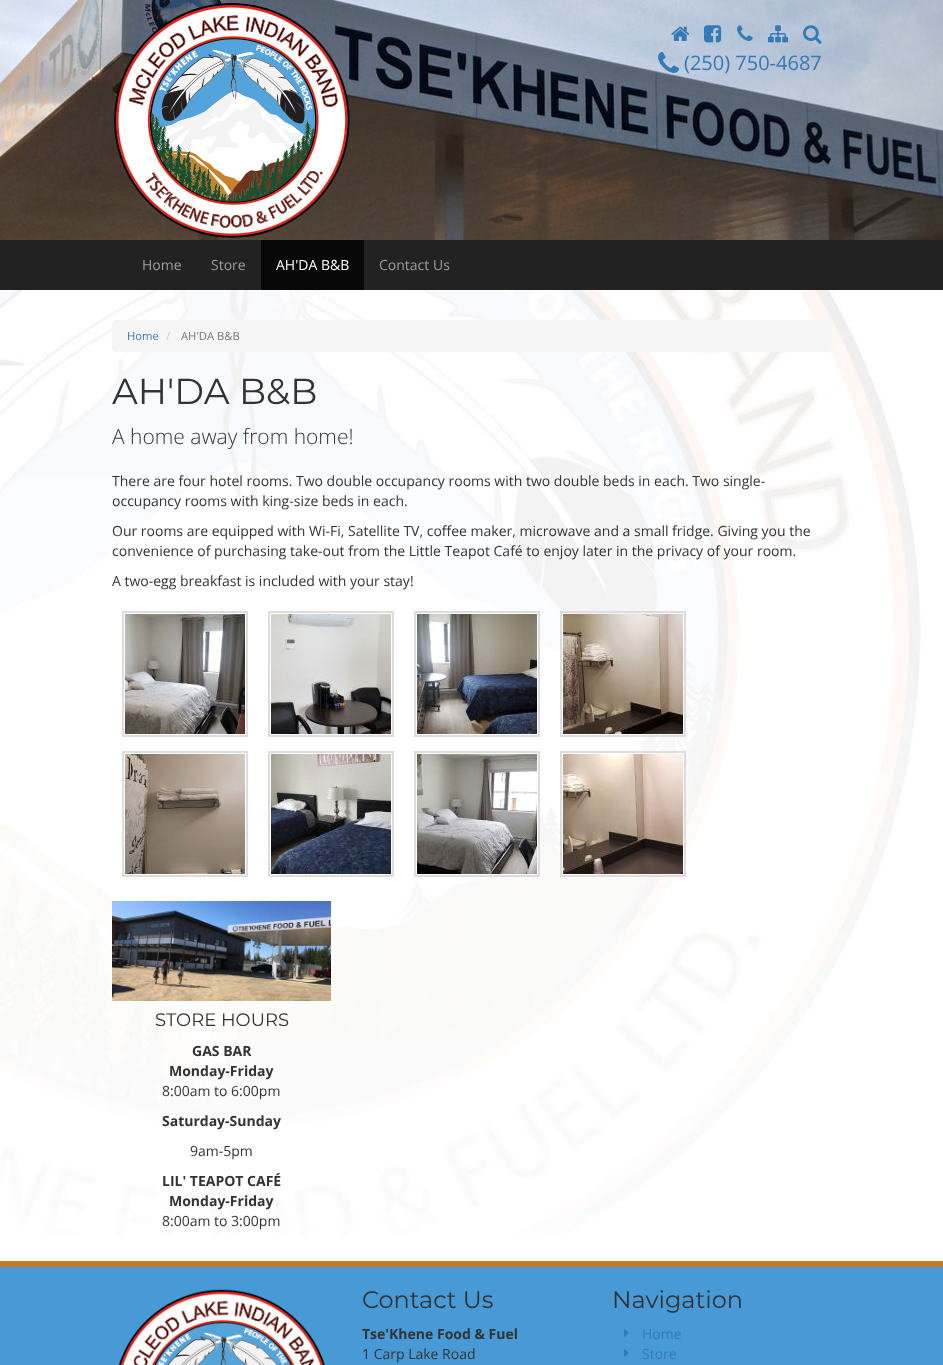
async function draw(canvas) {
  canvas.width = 943;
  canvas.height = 1365;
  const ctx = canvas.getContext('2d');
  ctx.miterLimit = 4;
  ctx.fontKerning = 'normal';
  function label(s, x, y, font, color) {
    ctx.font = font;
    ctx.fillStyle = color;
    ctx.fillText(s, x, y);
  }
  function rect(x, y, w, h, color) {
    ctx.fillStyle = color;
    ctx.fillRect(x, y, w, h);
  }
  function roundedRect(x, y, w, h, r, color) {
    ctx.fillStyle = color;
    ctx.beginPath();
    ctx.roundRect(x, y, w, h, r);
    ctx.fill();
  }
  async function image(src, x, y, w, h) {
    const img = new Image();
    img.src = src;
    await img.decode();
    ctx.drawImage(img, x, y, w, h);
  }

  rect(0, 0, 943, 1365, '#fff');
  await image('assets/img1.png', 0, 290, 921, 946);
  await image('assets/img2.png', 0, 0, 943, 240);
  await image('assets/img3.png', 114, 3, 236, 235);
  await image('assets/img4.png', 671, 26, 19, 15);
  await image('assets/img5.png', 704, 25, 18, 18);
  await image('assets/img6.png', 737, 25, 16, 16);
  await image('assets/img7.png', 768, 25, 20, 18);
  await image('assets/img8.png', 803, 25, 19, 19);
  await image('assets/img9.png', 658, 52, 21, 21);
  label('(250) 750-4687', 684, 70, '20px Open Sans', '#337ab7');
  rect(0, 240, 943, 50, '#222');
  label('Home', 142, 270, '14px Open Sans', '#9d9d9d');
  label('Store', 211, 270, '14px Open Sans', '#9d9d9d');
  rect(261, 240, 103, 50, '#080808');
  label('AH\'DA B&B', 276, 270, '14px Open Sans', '#fff');
  label('Contact Us', 379, 270, '14px Open Sans', '#9d9d9d');
  roundedRect(112, 320, 720, 32, 4, '#f5f5f5');
  label('Home', 127, 340, '11.25px Open Sans', '#337ab7');
  label('/', 166, 340, '11.25px Open Sans', '#ccc');
  label('AH\'DA B&B', 181, 340, '11.25px Open Sans', '#777');
  label('AH\'DA B&B', 112, 404, '36px Montserrat', '#333');
  label('A home away from home!', 112, 444, '300 21px Open Sans', '#333');
  label('There are four hotel rooms. Two double occupancy rooms with two double beds in each. Two single-', 112, 486, '14px Open Sans', '#333');
  label('occupancy rooms with king-size beds in each.', 112, 506, '14px Open Sans', '#333');
  label('Our rooms are equipped with Wi-Fi, Satellite TV, coffee maker, microwave and a small fridge. Giving you the', 112, 536, '14px Open Sans', '#333');
  label('convenience of purchasing take-out from the Little Teapot Café to enjoy later in the privacy of your room.', 112, 556, '14px Open Sans', '#333');
  label('A two-egg breakfast is included with your stay!', 112, 586, '14px Open Sans', '#333');
  ctx.strokeStyle = '#ddd';
  ctx.lineWidth = 2;
  ctx.strokeRect(123, 612, 124, 124);
  await image('assets/img10.png', 125, 614, 120, 120);
  ctx.strokeRect(269, 612, 124, 124);
  await image('assets/img11.png', 271, 614, 120, 120);
  ctx.strokeRect(415, 612, 124, 124);
  await image('assets/img12.png', 417, 614, 120, 120);
  ctx.strokeRect(561, 612, 124, 124);
  await image('assets/img13.png', 563, 614, 120, 120);
  ctx.strokeRect(123, 752, 124, 124);
  await image('assets/img14.png', 125, 754, 120, 120);
  ctx.strokeRect(269, 752, 124, 124);
  await image('assets/img15.png', 271, 754, 120, 120);
  ctx.strokeRect(415, 752, 124, 124);
  await image('assets/img16.png', 417, 754, 120, 120);
  ctx.strokeRect(561, 752, 124, 124);
  await image('assets/img17.png', 563, 754, 120, 120);
  await image('assets/img18.png', 112, 901, 219, 100);
  label('STORE HOURS', 155, 1026, '18px Montserrat', '#333');
  label('GAS BAR', 192, 1056, 'bold 14px Open Sans', '#333');
  label('Monday-Friday', 169, 1076, 'bold 14px Open Sans', '#333');
  label('8:00am to 6:00pm', 162, 1096, '14px Open Sans', '#333');
  label('Saturday-Sunday', 162, 1126, 'bold 14px Open Sans', '#333');
  label('9am-5pm', 190, 1156, '14px Open Sans', '#333');
  label('LIL\' TEAPOT CAFÉ', 162, 1186, 'bold 14px Open Sans', '#333');
  label('Monday-Friday', 169, 1206, 'bold 14px Open Sans', '#333');
  label('8:00am to 3:00pm', 162, 1226, '14px Open Sans', '#333');
  rect(0, 1267, 943, 98, '#479ad5');
  rect(0, 1261, 943, 6, '#c37926');
  await image('assets/img19.png', 118, 1289, 207, 76);
  label('Contact Us', 362, 1308, '24px Montserrat', '#333');
  label('Tse\'Khene Food & Fuel', 362, 1339, 'bold 14px Open Sans', '#333');
  label('1 Carp Lake Road', 362, 1359, '14px Open Sans', '#333');
  label('Navigation', 612, 1308, '24px Montserrat', '#333');
  await image('assets/img20.png', 624, 1329, 5, 8);
  label('Home', 642, 1339, '14px Open Sans', '#337ab7');
  await image('assets/img20.png', 624, 1349, 5, 8);
  label('Store', 642, 1359, '14px Open Sans', '#337ab7');
}

draw(document.querySelector('canvas'));
